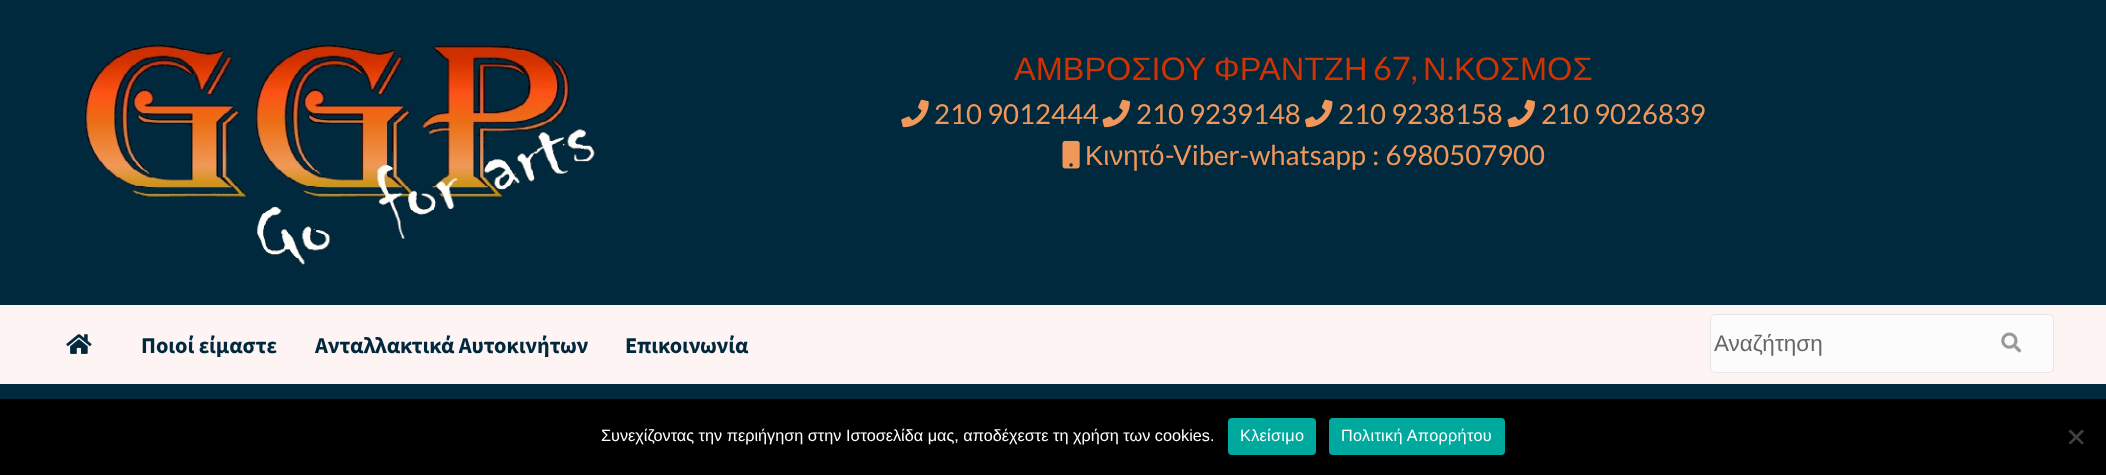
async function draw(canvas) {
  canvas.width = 2106;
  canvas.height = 475;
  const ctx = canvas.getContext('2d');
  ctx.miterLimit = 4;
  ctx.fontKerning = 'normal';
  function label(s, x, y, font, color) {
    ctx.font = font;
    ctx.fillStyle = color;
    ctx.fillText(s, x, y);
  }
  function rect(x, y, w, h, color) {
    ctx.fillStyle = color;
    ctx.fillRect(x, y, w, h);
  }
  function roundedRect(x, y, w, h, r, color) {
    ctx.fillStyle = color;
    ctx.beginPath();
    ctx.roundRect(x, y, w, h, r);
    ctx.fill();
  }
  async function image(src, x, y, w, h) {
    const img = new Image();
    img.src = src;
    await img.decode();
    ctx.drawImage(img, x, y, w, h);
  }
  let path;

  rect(0, 0, 2106, 475, '#00293d');
  await image('assets/img1.png', 85, 45, 510, 220);
  ctx.wordSpacing = '-1px';
  label('ΑΜΒΡΟΣΙΟΥ ΦΡΑΝΤΖΗ', 1014, 80, '32.5px Liberation Sans', '#d03200');
  ctx.wordSpacing = '0px';
  label('67,', 1373, 80, '32.5px Lato', '#d03200');
  label('Ν', 1423, 80, '32.5px Liberation Sans', '#d03200');
  label('.', 1447, 80, '32.5px Lato', '#d03200');
  label('ΚΟΣΜΟΣ', 1454, 80, '32.5px Liberation Sans', '#d03200');
  await image('assets/img2.png', 901, 99, 28, 29);
  label('210 9012444', 934, 124, '27.5px Lato', '#f19759');
  await image('assets/img3.png', 1102, 99, 28, 29);
  label('210 9239148', 1136, 124, '27.5px Lato', '#f19759');
  await image('assets/img4.png', 1305, 99, 28, 29);
  label('210 9238158', 1338, 124, '27.5px Lato', '#f19759');
  await image('assets/img3.png', 1507, 99, 28, 29);
  label('210 9026839', 1541, 124, '27.5px Lato', '#f19759');
  await image('assets/img5.png', 1062, 140, 18, 29);
  label('Κινητό', 1085, 165, '27.5px Liberation Sans', '#f19759');
  ctx.wordSpacing = '1px';
  label('-Viber-whatsapp : 6980507900', 1165, 165, '27.5px Lato', '#f19759');
  rect(0, 305, 2106, 79, '#fff4f4');
  await image('assets/img6.png', 66, 334, 26, 20);
  ctx.wordSpacing = '0px';
  label('Ποιοί είμαστε', 141, 353, 'bold 22.5px Source Sans Pro', '#00293d');
  label('Ανταλλακτικά Αυτοκινήτων', 315, 353, 'bold 22.5px Source Sans Pro', '#00293d');
  label('Επικοινωνία', 625, 353, 'bold 22.5px Source Sans Pro', '#00293d');
  ctx.fillStyle = '#fcfcfc';
  ctx.beginPath();
  ctx.roundRect(1710.5, 314.5, 343, 58, 4.5);
  ctx.fill();
  ctx.strokeStyle = '#e6e6e6';
  ctx.stroke();
  label('Αναζήτηση', 1714, 351, '22.5px Liberation Sans', '#666');
  await image('assets/img7.png', 2001, 332, 21, 21);
  rect(0, 399, 2106, 76, '#000');
  label('Συνεχίζοντας την περιήγηση στην Ιστοσελίδα μας, αποδέχεστε τη χρήση των cookies.', 601, 441, '16.25px Liberation Sans', '#fff');
  roundedRect(1228, 418, 88, 37, 4, '#00a99d');
  ctx.letterSpacing = '0.3px';
  label('Κλείσιμο', 1240, 441, '16.25px Liberation Sans', '#fff');
  roundedRect(1329, 418, 176, 37, 4, '#00a99d');
  label('Πολιτική Απορρήτου', 1341, 441, '16.25px Liberation Sans', '#fff');
  ctx.fillStyle = '#404040';
  path = new Path2D('M2082 429.5L2084 431.5L2070.5 444.5L2068.5 443Z');
  ctx.fill(path);
  path = new Path2D('M2068.5 431.5L2070.5 429.5L2084 443L2082 444.5Z');
  ctx.fill(path);
}

draw(document.querySelector('canvas'));
